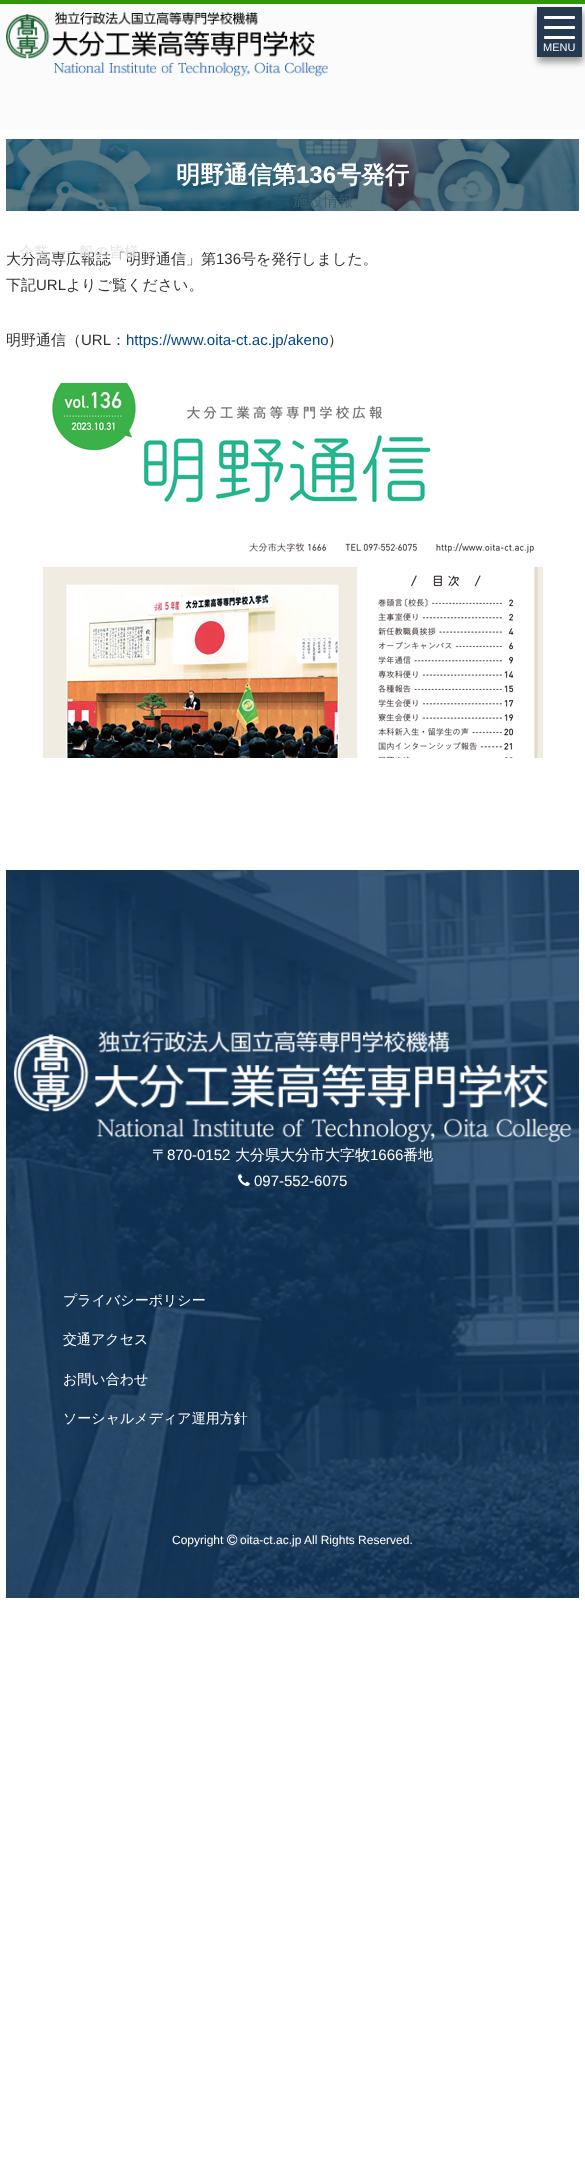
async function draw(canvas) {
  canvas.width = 585;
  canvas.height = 2177;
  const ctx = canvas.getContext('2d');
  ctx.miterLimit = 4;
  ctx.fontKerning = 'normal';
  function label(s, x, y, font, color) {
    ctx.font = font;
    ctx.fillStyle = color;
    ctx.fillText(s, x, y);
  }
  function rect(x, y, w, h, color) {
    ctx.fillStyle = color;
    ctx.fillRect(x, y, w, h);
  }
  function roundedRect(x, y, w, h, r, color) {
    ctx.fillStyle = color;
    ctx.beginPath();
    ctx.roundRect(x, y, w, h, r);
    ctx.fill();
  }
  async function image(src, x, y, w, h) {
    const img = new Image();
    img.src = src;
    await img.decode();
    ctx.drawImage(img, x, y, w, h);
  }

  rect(0, 0, 585, 2177, '#fff');
  rect(0, 4, 585, 126, '#fbfbfb');
  rect(0, 0, 585, 4, '#2e9703');
  await image('assets/img1.png', 6, 12, 322, 65);
  ctx.fillStyle = '#00000066';
  ctx.filter = 'blur(3.5px)';
  ctx.beginPath();
  ctx.rect(538, 12, 45, 50);
  ctx.fill();
  ctx.filter = 'none';
  rect(537, 7, 45, 50, '#253a51');
  roundedRect(544, 16, 31, 3, 1, '#fff');
  roundedRect(544, 26, 31, 3, 1, '#fff');
  roundedRect(544, 36, 31, 3, 1, '#fff');
  label('MENU', 543, 51, '11px Liberation Sans', '#fff');
  await image('assets/img2.png', 6, 139, 573, 72);
  label('へ', 110, 153, '500 15px WenQuanYi Zen Hei', '#466e7e');
  label('施設情報', 293, 206, '500 15px WenQuanYi Zen Hei', '#3b6071');
  label('大分高専広報誌「明野通信」第', 6, 264, '500 15px WenQuanYi Zen Hei', '#333');
  label('企業・一般の皆様へ', 19, 257, '500 15px WenQuanYi Zen Hei', '#e5e5e5');
  label('明野通信第', 176, 183, 'bold 24px WenQuanYi Zen Hei', '#fff');
  label('136', 296, 183, 'bold 24px Liberation Sans', '#fff');
  label('号発行', 337, 183, 'bold 24px WenQuanYi Zen Hei', '#fff');
  label('136', 216, 264, '15px Liberation Sans', '#333');
  label('号を発行しました。', 241, 264, '500 15px WenQuanYi Zen Hei', '#333');
  label('下記', 6, 290, '500 15px WenQuanYi Zen Hei', '#333');
  label('URL', 36, 290, '15px Liberation Sans', '#333');
  label('よりご覧ください。', 66, 290, '500 15px WenQuanYi Zen Hei', '#333');
  label('明野通信（', 6, 345, '500 15px WenQuanYi Zen Hei', '#333');
  label('URL', 81, 345, '15px Liberation Sans', '#333');
  label('：', 111, 345, '500 15px WenQuanYi Zen Hei', '#333');
  label('https://www.oita-ct.ac.jp/akeno', 126, 345, '15px Liberation Sans', '#00468c');
  label('）', 328, 345, '500 15px WenQuanYi Zen Hei', '#333');
  await image('assets/img3.png', 43, 383, 500, 375);
  await image('assets/img4.png', 6, 870, 573, 728);
  await image('assets/img5.png', 13, 1031, 559, 112);
  label('〒', 152, 1160, '500 15px WenQuanYi Zen Hei', '#fff');
  label('870-0152', 167, 1160, '15px Liberation Sans', '#fff');
  label('大分県大分市大字牧', 235, 1160, '500 15px WenQuanYi Zen Hei', '#fff');
  label('1666', 370, 1160, '15px Liberation Sans', '#fff');
  label('番地', 403, 1160, '500 15px WenQuanYi Zen Hei', '#fff');
  await image('assets/img6.png', 238, 1174, 12, 12);
  label('097-552-6075', 254, 1186, '15px Liberation Sans', '#fff');
  label('プライバシーポリシー', 63, 1305, '500 14px WenQuanYi Zen Hei', '#fff');
  label('交通アクセス', 63, 1344, '500 14px WenQuanYi Zen Hei', '#fff');
  label('お問い合わせ', 63, 1384, '500 14px WenQuanYi Zen Hei', '#fff');
  label('ソーシャルメディア運用方針', 63, 1423, '500 14px WenQuanYi Zen Hei', '#fff');
  label('Copyright', 172, 1544, '12px Liberation Sans', '#fff');
  await image('assets/img7.png', 227, 1534, 11, 11);
  label('oita-ct.ac.jp All Rights Reserved.', 240, 1544, '12px Liberation Sans', '#fff');
}

draw(document.querySelector('canvas'));
